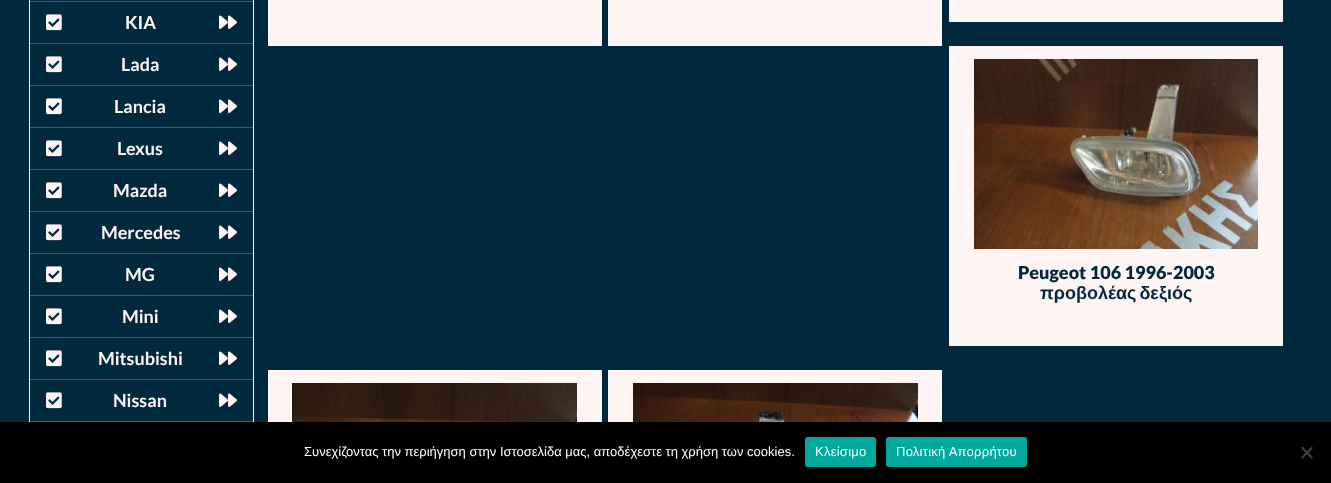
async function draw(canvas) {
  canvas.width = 1331;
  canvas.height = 483;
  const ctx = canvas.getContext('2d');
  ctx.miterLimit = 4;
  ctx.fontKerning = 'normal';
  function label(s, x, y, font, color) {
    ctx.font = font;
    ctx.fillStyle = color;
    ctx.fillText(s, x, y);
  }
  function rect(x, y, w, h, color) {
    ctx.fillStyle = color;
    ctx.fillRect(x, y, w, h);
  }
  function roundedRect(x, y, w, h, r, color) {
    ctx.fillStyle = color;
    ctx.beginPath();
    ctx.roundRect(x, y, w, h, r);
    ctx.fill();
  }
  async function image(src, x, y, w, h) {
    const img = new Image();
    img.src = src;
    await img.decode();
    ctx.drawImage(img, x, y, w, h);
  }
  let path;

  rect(0, 0, 1331, 483, '#00293d');
  rect(29, 0, 225, 422, '#fff4f4');
  rect(30, 0, 223, 1, '#00293d');
  rect(30, 1, 223, 1, '#555');
  rect(30, 2, 223, 41, '#00293d');
  rect(30, 43, 223, 1, '#555');
  await image('assets/img1.png', 46, 14, 16, 17);
  label('KIA', 125, 29, 'bold 18px Lato', '#fff4f4');
  await image('assets/img2.png', 219, 15, 18, 14);
  rect(30, 44, 223, 41, '#00293d');
  rect(30, 85, 223, 1, '#555');
  await image('assets/img1.png', 46, 56, 16, 17);
  label('Lada', 121, 71, 'bold 18px Lato', '#fff4f4');
  await image('assets/img2.png', 219, 57, 18, 14);
  rect(30, 86, 223, 41, '#00293d');
  rect(30, 127, 223, 1, '#555');
  await image('assets/img1.png', 46, 98, 16, 17);
  label('Lancia', 114, 113, 'bold 18px Lato', '#fff4f4');
  await image('assets/img2.png', 219, 99, 18, 14);
  rect(30, 128, 223, 41, '#00293d');
  rect(30, 169, 223, 1, '#555');
  await image('assets/img1.png', 46, 140, 16, 17);
  label('Lexus', 117, 155, 'bold 18px Lato', '#fff4f4');
  await image('assets/img2.png', 219, 141, 18, 14);
  rect(30, 170, 223, 41, '#00293d');
  rect(30, 211, 223, 1, '#555');
  await image('assets/img1.png', 46, 182, 16, 17);
  label('Mazda', 113, 197, 'bold 18px Lato', '#fff4f4');
  await image('assets/img2.png', 219, 183, 18, 14);
  rect(30, 212, 223, 41, '#00293d');
  rect(30, 253, 223, 1, '#555');
  await image('assets/img1.png', 46, 224, 16, 17);
  label('Mercedes', 101, 239, 'bold 18px Lato', '#fff4f4');
  await image('assets/img2.png', 219, 225, 18, 14);
  rect(30, 254, 223, 41, '#00293d');
  rect(30, 295, 223, 1, '#555');
  await image('assets/img1.png', 46, 266, 16, 17);
  label('MG', 125, 281, 'bold 18px Lato', '#fff4f4');
  await image('assets/img2.png', 219, 267, 18, 14);
  rect(30, 296, 223, 41, '#00293d');
  rect(30, 337, 223, 1, '#555');
  await image('assets/img1.png', 46, 308, 16, 17);
  label('Mini', 122, 323, 'bold 18px Lato', '#fff4f4');
  await image('assets/img2.png', 219, 309, 18, 14);
  rect(30, 338, 223, 41, '#00293d');
  rect(30, 379, 223, 1, '#555');
  await image('assets/img1.png', 46, 350, 16, 17);
  label('Mitsubishi', 98, 365, 'bold 18px Lato', '#fff4f4');
  await image('assets/img2.png', 219, 351, 18, 14);
  rect(30, 380, 223, 41, '#00293d');
  rect(30, 421, 223, 1, '#555');
  await image('assets/img1.png', 46, 392, 16, 17);
  label('Nissan', 113, 407, 'bold 18px Lato', '#fff4f4');
  await image('assets/img2.png', 219, 393, 18, 14);
  rect(268, 0, 334, 46, '#fff4f4');
  rect(608, 0, 334, 46, '#fff4f4');
  rect(949, 0, 334, 22, '#fff4f4');
  rect(949, 46, 334, 300, '#fff4f4');
  await image('assets/img3.png', 974, 59, 284, 190);
  label('Peugeot 106 1996-2003', 1018, 279, '900 18px Lato', '#00293d');
  ctx.wordSpacing = '-2px';
  label('προβολέας δεξιός', 1040, 299, 'bold 18px Liberation Sans', '#00293d');
  rect(268, 370, 334, 52, '#fff4f4');
  await image('assets/img4.png', 292, 383, 285, 39);
  rect(608, 370, 334, 52, '#fff4f4');
  await image('assets/img5.png', 633, 383, 285, 39);
  rect(0, 422, 1331, 61, '#000');
  ctx.wordSpacing = '0px';
  label('Συνεχίζοντας την περιήγηση στην Ιστοσελίδα μας, αποδέχεστε τη χρήση των cookies.', 304, 456, '13px Liberation Sans', '#fff');
  roundedRect(805, 437, 71, 30, 3, '#00a99d');
  ctx.letterSpacing = '0.25px';
  label('Κλείσιμο', 815, 456, '13px Liberation Sans', '#fff');
  roundedRect(886, 437, 141, 30, 3, '#00a99d');
  label('Πολιτική Απορρήτου', 896, 456, '13px Liberation Sans', '#fff');
  ctx.fillStyle = '#404040';
  path = new Path2D('M1311.5 446.5L1313 448L1302.5 459L1301 457.5Z');
  ctx.fill(path);
  path = new Path2D('M1301 448L1302.5 446.5L1313 457.5L1311.5 459Z');
  ctx.fill(path);
}

draw(document.querySelector('canvas'));
